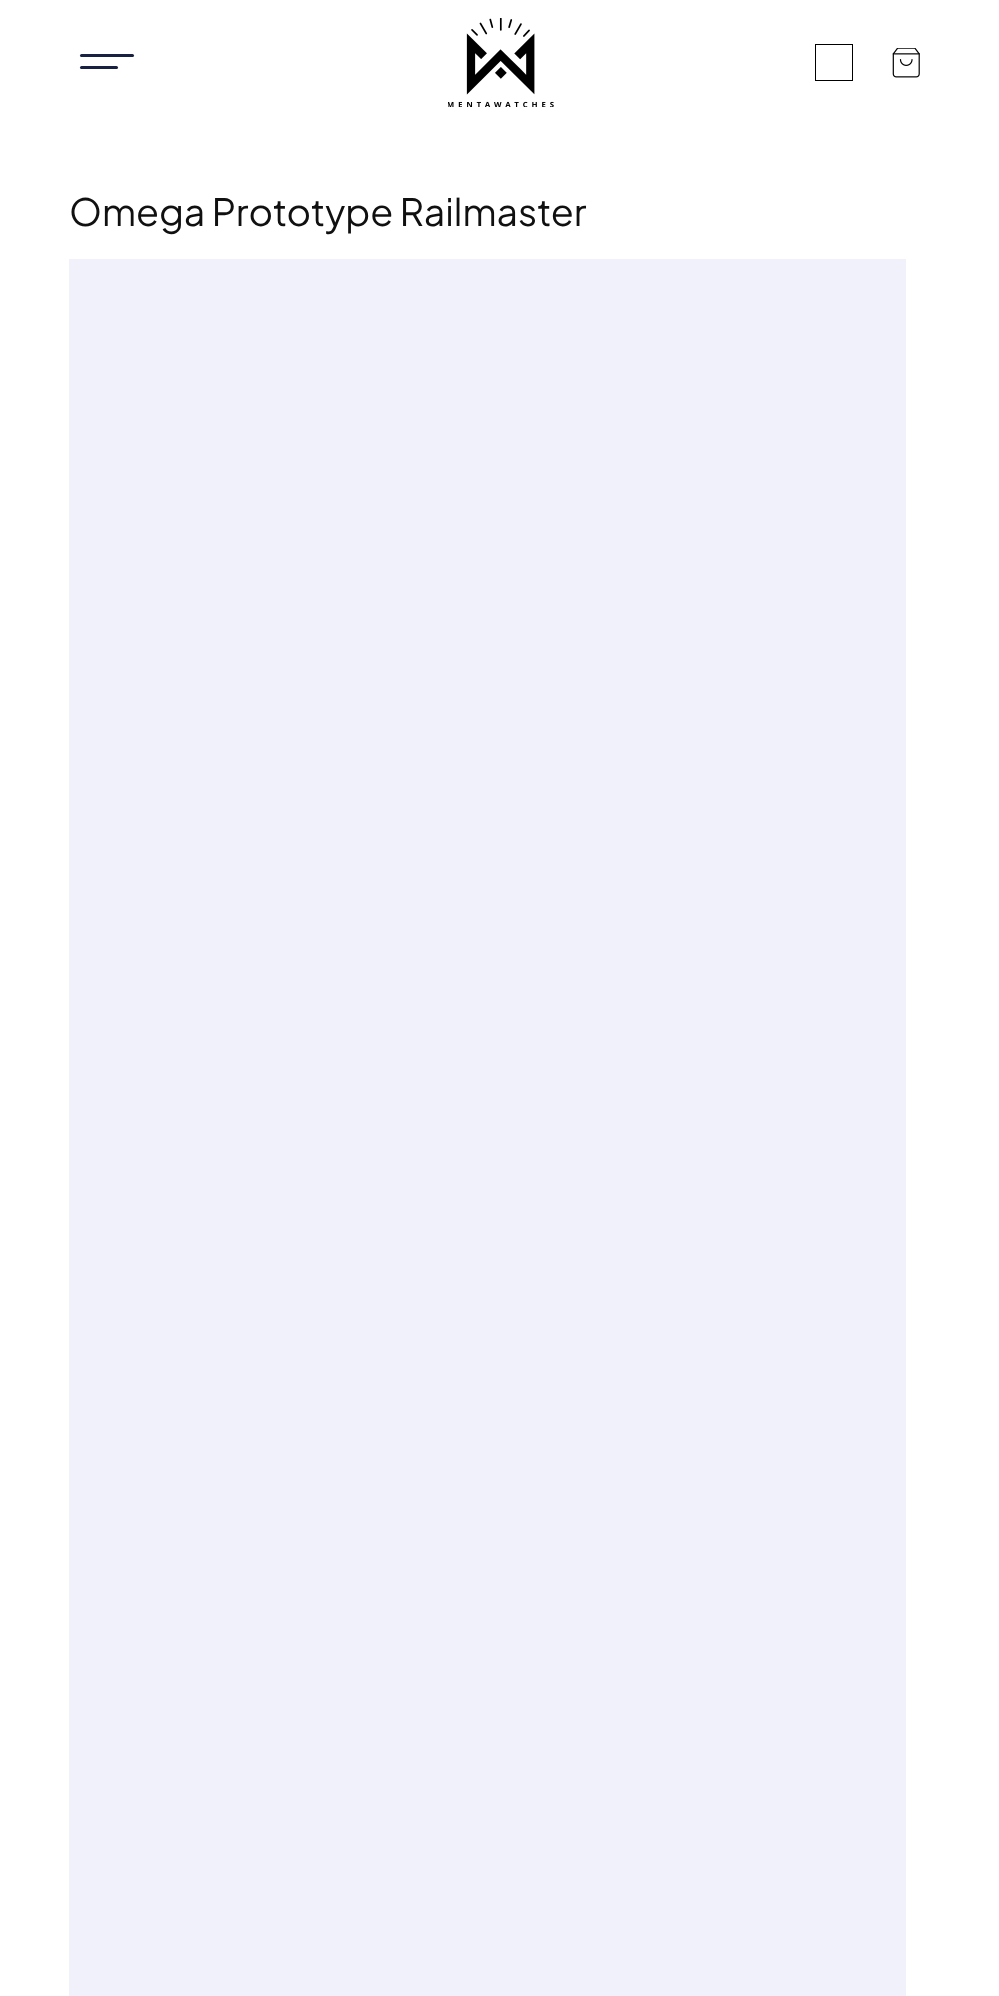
async function draw(canvas) {
  canvas.width = 999;
  canvas.height = 1996;
  const ctx = canvas.getContext('2d');
  ctx.miterLimit = 4;
  ctx.fontKerning = 'normal';
  function label(s, x, y, font, color) {
    ctx.font = font;
    ctx.fillStyle = color;
    ctx.fillText(s, x, y);
  }
  function rect(x, y, w, h, color) {
    ctx.fillStyle = color;
    ctx.fillRect(x, y, w, h);
  }
  function roundedRect(x, y, w, h, r, color) {
    ctx.fillStyle = color;
    ctx.beginPath();
    ctx.roundRect(x, y, w, h, r);
    ctx.fill();
  }
  async function image(src, x, y, w, h) {
    const img = new Image();
    img.src = src;
    await img.decode();
    ctx.drawImage(img, x, y, w, h);
  }

  rect(0, 0, 999, 1996, '#fff');
  roundedRect(80, 54, 54, 3, 1.5, '#182141');
  roundedRect(80, 66, 38, 3, 1.5, '#182141');
  await image('assets/img1.png', 448, 18, 106, 89);
  ctx.strokeStyle = '#000';
  ctx.strokeRect(815.5, 44.5, 37, 36);
  await image('assets/img2.png', 892, 48, 28, 30);
  label('Omega Prototype Railmaster', 69, 226, '37.5px Plus Jakarta Sans', '#101010');
  rect(69, 259, 837, 1737, '#f0f1fa');
}

draw(document.querySelector('canvas'));
